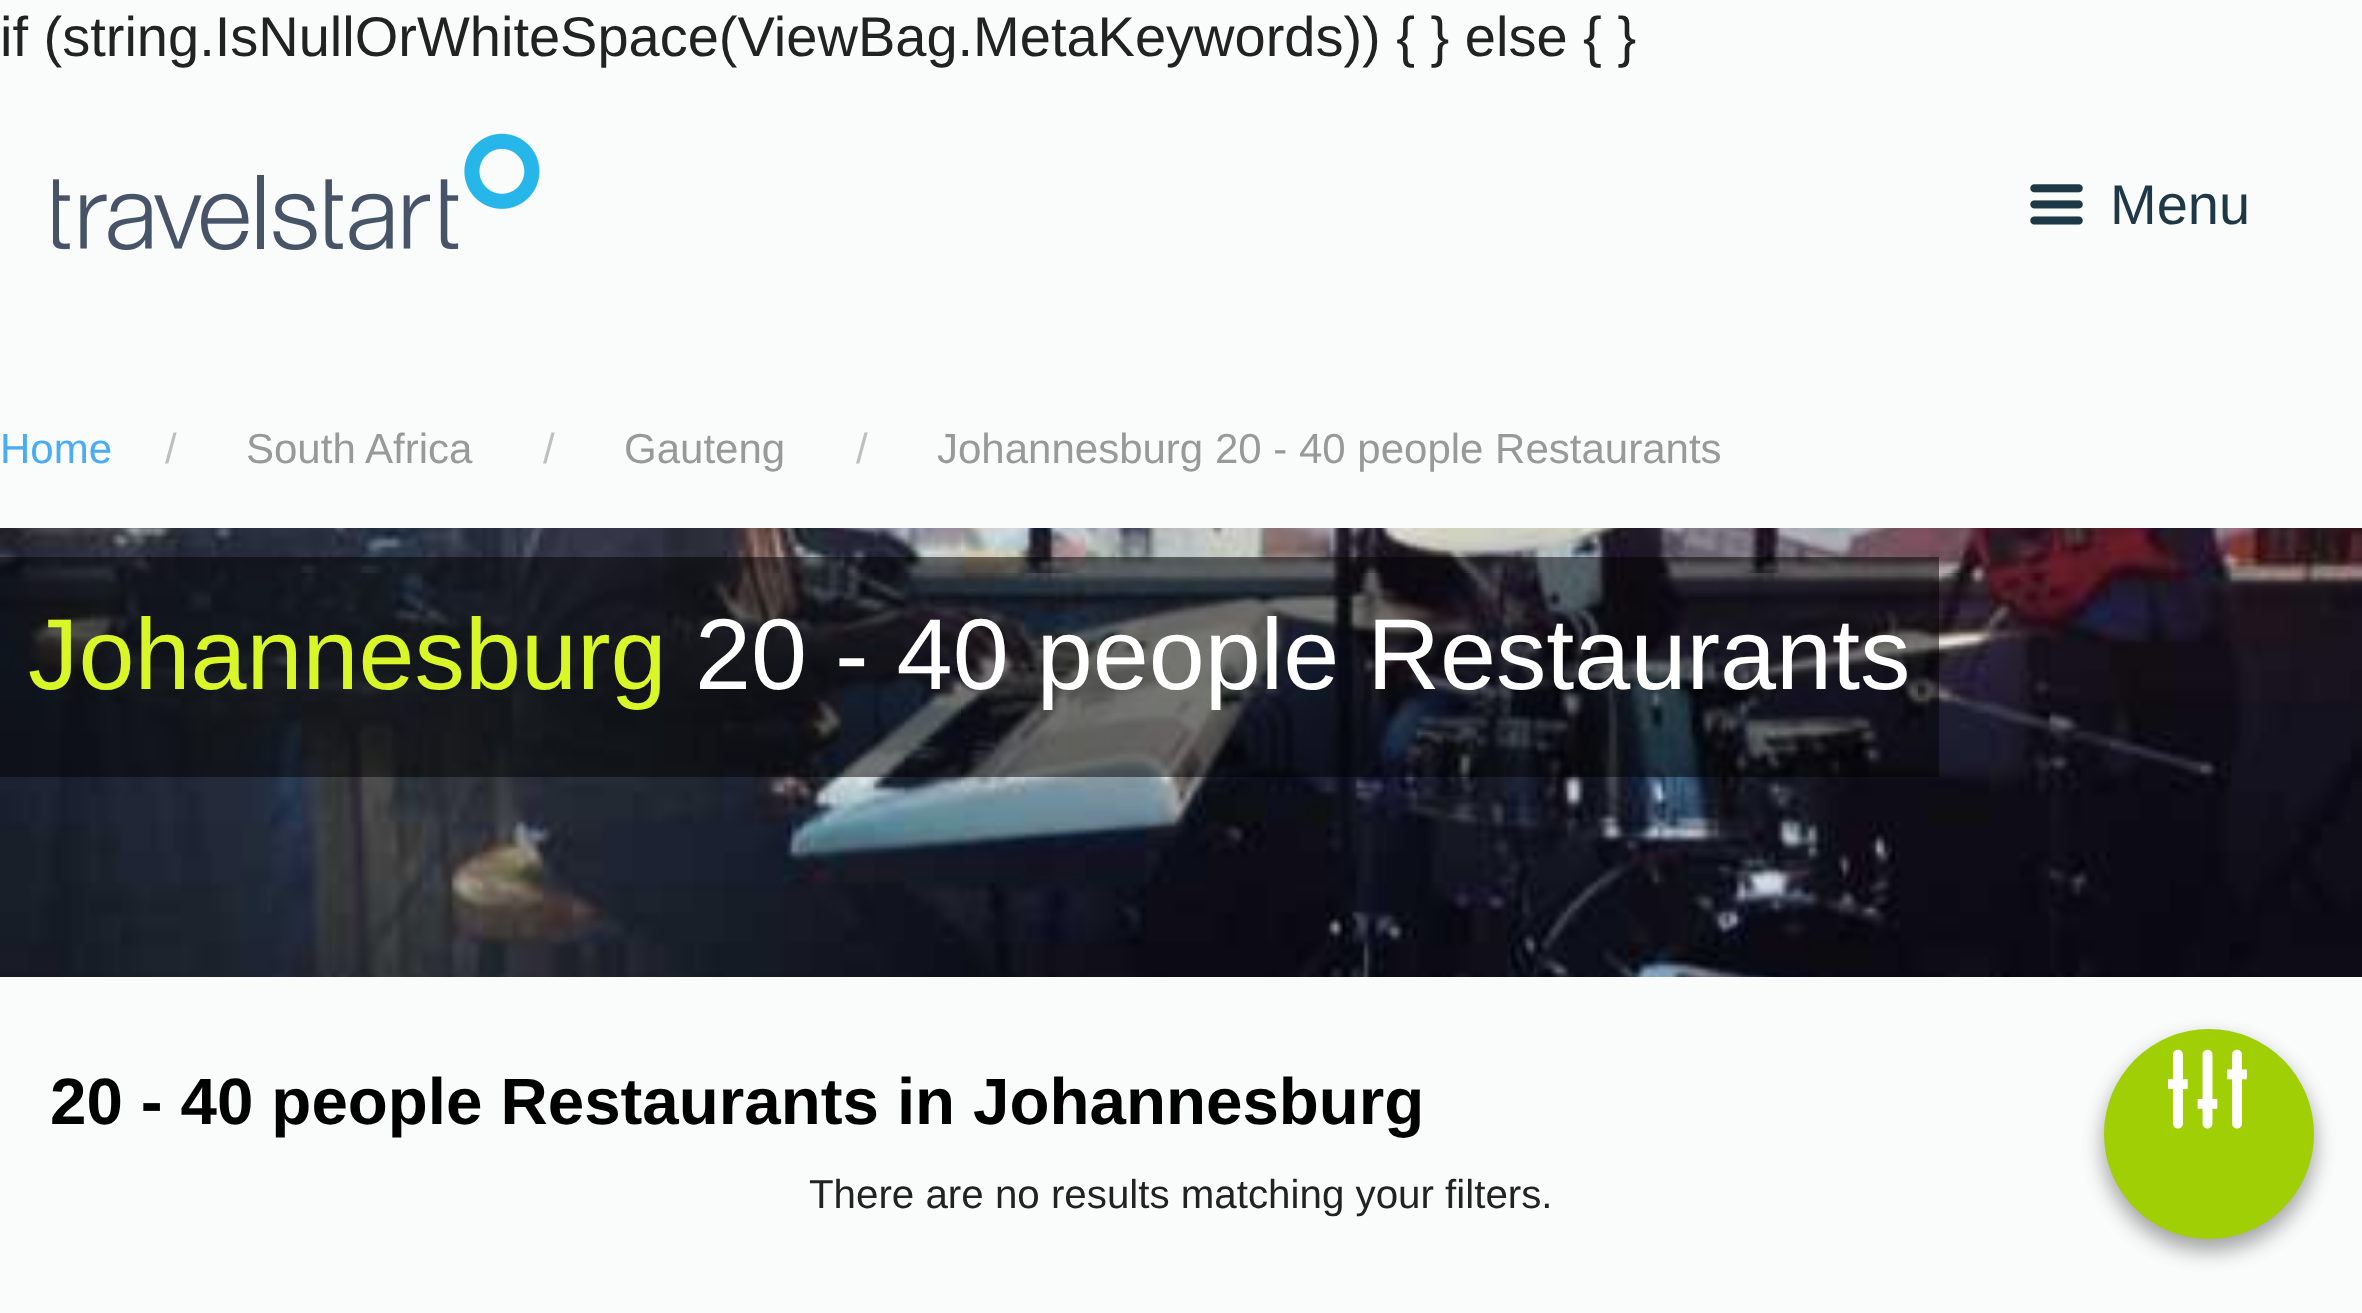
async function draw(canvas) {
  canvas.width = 2362;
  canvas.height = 1313;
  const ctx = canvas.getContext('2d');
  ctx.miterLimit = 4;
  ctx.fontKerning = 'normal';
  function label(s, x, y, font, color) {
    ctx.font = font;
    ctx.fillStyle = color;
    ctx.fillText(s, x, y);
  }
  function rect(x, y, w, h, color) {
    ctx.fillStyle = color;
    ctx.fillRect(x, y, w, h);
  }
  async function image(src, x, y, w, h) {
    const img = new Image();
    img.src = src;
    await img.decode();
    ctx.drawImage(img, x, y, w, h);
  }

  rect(0, 0, 2362, 1313, '#fafbfb');
  label('if (string.IsNullOrWhiteSpace(ViewBag.MetaKeywords)) { } else { }', 0, 56, '56px Liberation Sans', '#222');
  await image('assets/img1.png', 53, 133, 487, 118);
  await image('assets/img2.png', 2030, 184, 53, 41);
  label('Menu', 2110, 224, '56px Liberation Sans', '#1e3945');
  label('Home', 0, 463, '42px Liberation Sans', '#4aacf2');
  label('/', 165, 463, '42px Liberation Sans', '#bfbfbf');
  label('South Africa', 246, 463, '42px Liberation Sans', '#999');
  label('/', 543, 463, '42px Liberation Sans', '#bfbfbf');
  label('Gauteng', 624, 463, '42px Liberation Sans', '#999');
  label('/', 856, 463, '42px Liberation Sans', '#bfbfbf');
  label('Johannesburg 20 - 40 people Restaurants', 937, 463, '42px Liberation Sans', '#999');
  await image('assets/img3.png', 0, 528, 2362, 449);
  rect(0, 557, 1939, 220, '#00000080');
  label('Johannesburg', 28, 689, '100.75px Liberation Sans', '#d9f628');
  label('20 - 40 people Restaurants', 695, 689, '100.75px Liberation Sans', '#fff');
  ctx.wordSpacing = '-0.25px';
  label('20 - 40 people Restaurants in Johannesburg', 50, 1124, 'bold 65.5px Liberation Sans', '#000');
  ctx.wordSpacing = '0px';
  label('There are no results matching your filters.', 809, 1208, '40.3px Liberation Sans', '#222');
  ctx.fillStyle = '#0000003b';
  ctx.filter = 'blur(10.5px)';
  ctx.beginPath();
  ctx.roundRect(2104, 1040, 210, 210, 105);
  ctx.fill();
  ctx.filter = 'none';
  ctx.fillStyle = '#00000029';
  ctx.filter = 'blur(10.5px)';
  ctx.beginPath();
  ctx.roundRect(2104, 1040, 210, 210, 105);
  ctx.fill();
  ctx.filter = 'none';
  ctx.fillStyle = '#a0cf05';
  ctx.beginPath();
  ctx.arc(2209, 1134, 105, 0, 2 * Math.PI);
  ctx.fill();
  await image('assets/img4.png', 2168, 1049, 79, 80);
}

draw(document.querySelector('canvas'));
